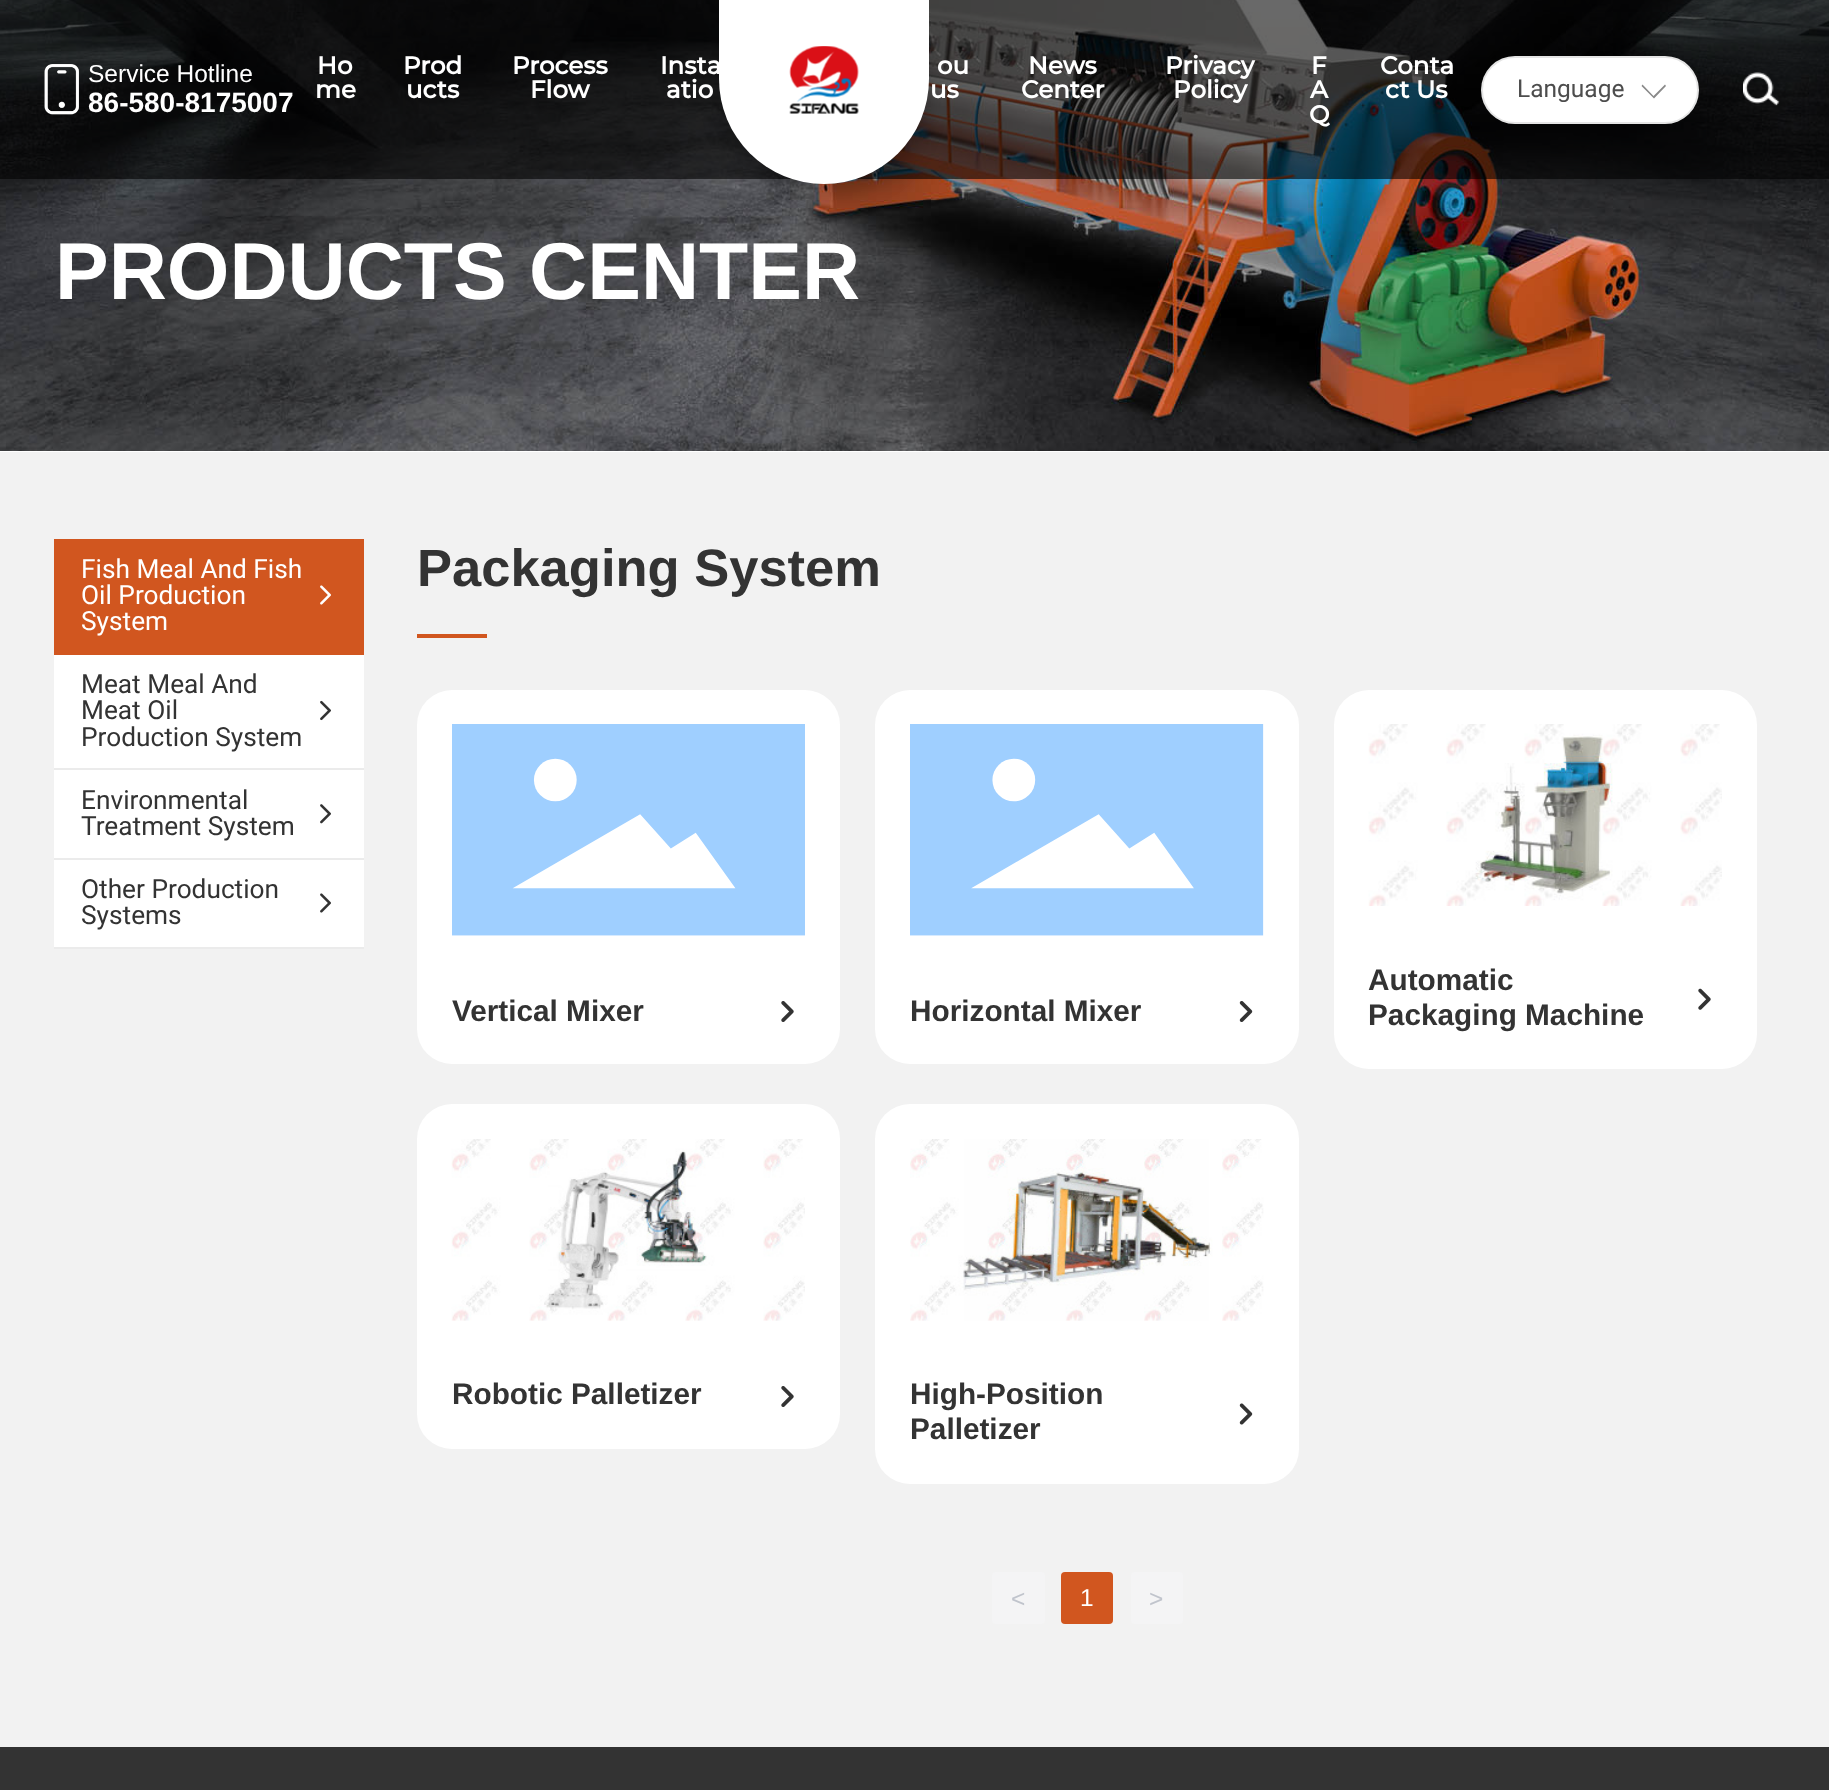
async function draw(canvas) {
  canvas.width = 1829;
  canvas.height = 1790;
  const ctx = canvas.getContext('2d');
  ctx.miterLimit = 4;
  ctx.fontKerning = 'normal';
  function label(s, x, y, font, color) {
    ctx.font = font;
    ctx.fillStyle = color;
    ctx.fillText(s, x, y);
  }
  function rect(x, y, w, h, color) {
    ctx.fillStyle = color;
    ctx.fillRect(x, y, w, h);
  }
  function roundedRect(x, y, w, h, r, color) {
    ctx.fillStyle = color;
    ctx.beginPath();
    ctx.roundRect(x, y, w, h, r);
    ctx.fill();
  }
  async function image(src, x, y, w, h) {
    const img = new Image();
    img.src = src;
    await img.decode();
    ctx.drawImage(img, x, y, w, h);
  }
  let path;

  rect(0, 0, 1829, 1790, '#fff');
  await image('assets/img4.png', 0, 0, 1829, 451);
  rect(0, 0, 1829, 179, '#00000096');
  ctx.fillStyle = '#00000033';
  ctx.filter = 'blur(9px)';
  ctx.beginPath();
  ctx.roundRect(719, 9, 210, 184, 105);
  ctx.fill();
  ctx.filter = 'none';
  ctx.fillStyle = '#fff';
  ctx.beginPath();
  ctx.roundRect(719, 0, 210, 184, [0, 0, 105, 105]);
  ctx.fill();
  await image('assets/img1.png', 789, 46, 70, 68);
  await image('assets/img2.png', 44, 64, 35, 51);
  label('Service Hotline', 88, 82, '24.5px Liberation Sans', '#fff');
  label('86-580-8175007', 88, 112, 'bold 28px Liberation Sans', '#fff');
  label('Ho', 317, 74, 'bold 24.5px Montserrat', '#fff');
  label('me', 315, 98, 'bold 24.5px Montserrat', '#fff');
  label('Prod', 403, 74, 'bold 24.5px Montserrat', '#fff');
  label('ucts', 406, 98, 'bold 24.5px Montserrat', '#fff');
  label('Process', 512, 74, 'bold 24.5px Montserrat', '#fff');
  label('Flow', 530, 98, 'bold 24.5px Montserrat', '#fff');
  label('Insta', 660, 74, 'bold 24.5px Montserrat', '#fff');
  label('atio', 666, 98, 'bold 24.5px Montserrat', '#fff');
  label('ou', 937, 74, 'bold 24.5px Montserrat', '#fff');
  label('us', 930, 98, 'bold 24.5px Montserrat', '#fff');
  label('News', 1028, 74, 'bold 24.5px Montserrat', '#fff');
  label('Center', 1021, 98, 'bold 24.5px Montserrat', '#fff');
  label('Privacy', 1165, 74, 'bold 24.5px Montserrat', '#fff');
  label('Policy', 1173, 98, 'bold 24.5px Montserrat', '#fff');
  label('F', 1311, 74, 'bold 24.5px Montserrat', '#fff');
  label('A', 1310, 98, 'bold 24.5px Montserrat', '#fff');
  label('Q', 1309, 123, 'bold 24.5px Montserrat', '#fff');
  label('Conta', 1380, 74, 'bold 24.5px Montserrat', '#fff');
  label('ct Us', 1385, 98, 'bold 24.5px Montserrat', '#fff');
  roundedRect(1481, 56, 218, 68, 34, '#fff');
  ctx.beginPath();
  ctx.roundRect(1482, 57, 216, 66, 33);
  ctx.strokeStyle = '#0000001a';
  ctx.lineWidth = 2;
  ctx.stroke();
  label('Language', 1517, 97, '24.5px Roboto', '#4d4d4d');
  ctx.fillStyle = '#8a8a8a';
  path = new Path2D('M1642.5 84.5L1641.5 86L1654 98.5L1666 86L1665 84.5L1653.5 96Z');
  ctx.fill(path);
  await image('assets/img3.png', 1743, 72, 37, 34);
  label('PRODUCTS CENTER', 55, 299, 'bold 80.5px Liberation Sans', '#fff');
  rect(0, 452, 1829, 1295, '#f2f2f2');
  rect(54, 655, 310, 292, '#fff');
  rect(54, 539, 310, 116, '#d1561f');
  label('Fish Meal And Fish', 81, 578, '26.25px Roboto', '#fff');
  label('Oil Production', 81, 604, '26.25px Roboto', '#fff');
  label('System', 81, 630, '26.25px Roboto', '#fff');
  await image('assets/img5.png', 320, 585, 11, 20);
  rect(54, 768, 310, 2, '#ebebeb');
  label('Meat Meal And', 81, 693, '26.25px Roboto', '#333');
  label('Meat Oil', 81, 719, '26.25px Roboto', '#333');
  label('Production System', 81, 746, '26.25px Roboto', '#333');
  await image('assets/img6.png', 320, 700, 11, 21);
  rect(54, 858, 310, 2, '#ebebeb');
  label('Environmental', 81, 809, '26.25px Roboto', '#333');
  label('Treatment System', 81, 835, '26.25px Roboto', '#333');
  await image('assets/img7.png', 320, 804, 11, 20);
  rect(54, 947, 310, 2, '#ebebeb');
  label('Other Production', 81, 898, '26.25px Roboto', '#333');
  label('Systems', 81, 924, '26.25px Roboto', '#333');
  await image('assets/img8.png', 320, 893, 11, 20);
  label('Packaging System', 417, 586, 'bold 52.5px Liberation Sans', '#333');
  rect(417, 634, 70, 4, '#d1561f');
  roundedRect(417, 690, 423, 374, 35, '#fff');
  await image('assets/img9.png', 452, 724, 353, 212);
  label('Vertical Mixer', 452, 1021, 'bold 29.75px Liberation Sans', '#333');
  await image('assets/img10.png', 781, 1001, 13, 21);
  roundedRect(875, 690, 424, 374, 35, '#fff');
  await image('assets/img11.png', 910, 724, 354, 212);
  label('Horizontal Mixer', 910, 1021, 'bold 29.75px Liberation Sans', '#333');
  await image('assets/img12.png', 1239, 1001, 14, 21);
  roundedRect(1334, 690, 423, 379, 35, '#fff');
  await image('assets/img13.png', 1368, 724, 354, 182);
  label('Automatic', 1368, 990, 'bold 29.75px Liberation Sans', '#333');
  label('Packaging Machine', 1368, 1025, 'bold 29.75px Liberation Sans', '#333');
  await image('assets/img14.png', 1698, 988, 13, 22);
  roundedRect(417, 1104, 423, 345, 35, '#fff');
  await image('assets/img15.png', 451, 1139, 354, 182);
  label('Robotic Palletizer', 452, 1404, 'bold 29.75px Liberation Sans', '#333');
  await image('assets/img10.png', 781, 1386, 13, 21);
  roundedRect(875, 1104, 424, 380, 35, '#fff');
  await image('assets/img16.png', 910, 1139, 354, 182);
  label('High-Position', 910, 1404, 'bold 29.75px Liberation Sans', '#333');
  label('Palletizer', 910, 1439, 'bold 29.75px Liberation Sans', '#333');
  await image('assets/img17.png', 1239, 1403, 14, 22);
  roundedRect(992, 1572, 53, 52, 4, '#f4f4f5');
  label('<', 1011, 1607, '24.5px Liberation Sans', '#c0c4cc');
  roundedRect(1061, 1572, 52, 52, 4, '#d1561f');
  label('1', 1080, 1606, '24.5px Liberation Sans', '#fff');
  roundedRect(1131, 1572, 52, 52, 4, '#f4f4f5');
  label('>', 1149, 1607, '24.5px Liberation Sans', '#c0c4cc');
  rect(0, 1747, 1829, 43, '#333');
}

draw(document.querySelector('canvas'));
